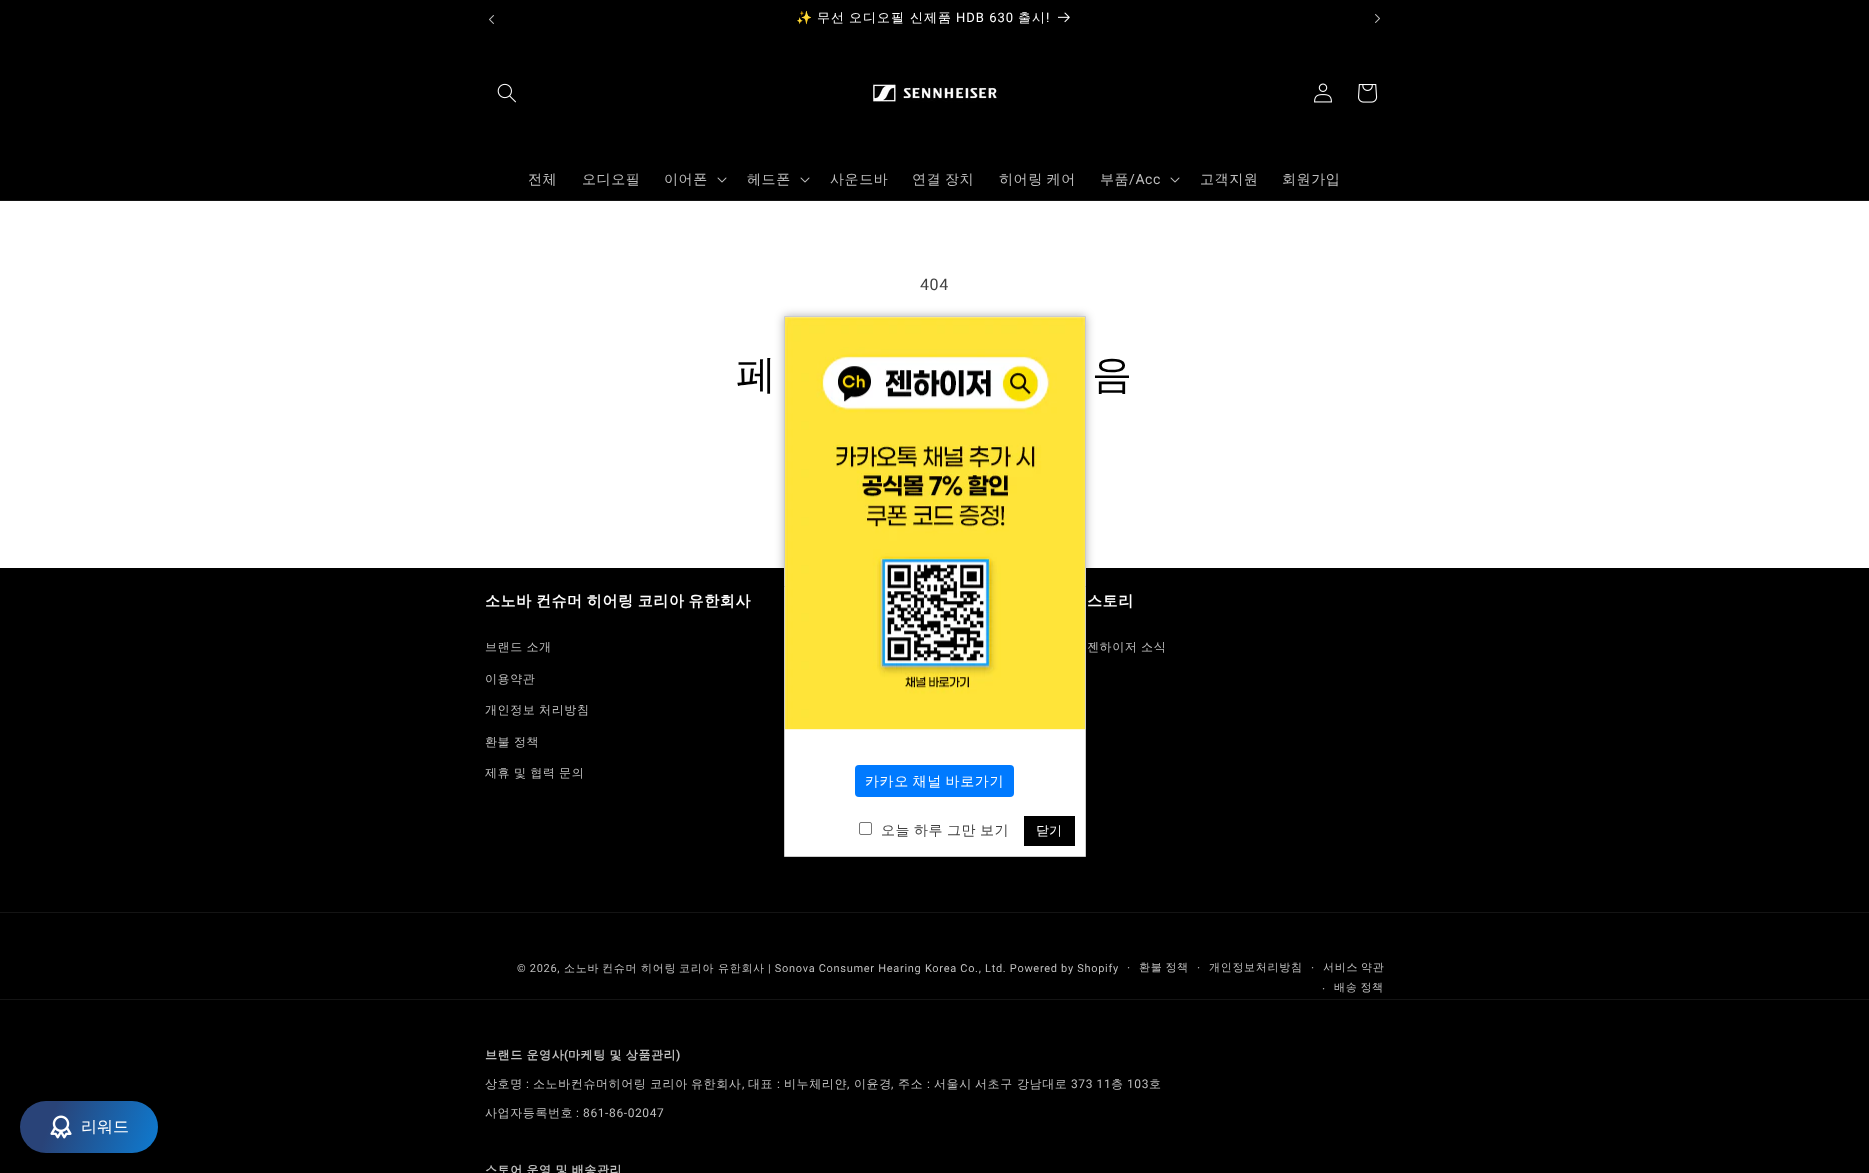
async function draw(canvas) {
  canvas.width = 1869;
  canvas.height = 1173;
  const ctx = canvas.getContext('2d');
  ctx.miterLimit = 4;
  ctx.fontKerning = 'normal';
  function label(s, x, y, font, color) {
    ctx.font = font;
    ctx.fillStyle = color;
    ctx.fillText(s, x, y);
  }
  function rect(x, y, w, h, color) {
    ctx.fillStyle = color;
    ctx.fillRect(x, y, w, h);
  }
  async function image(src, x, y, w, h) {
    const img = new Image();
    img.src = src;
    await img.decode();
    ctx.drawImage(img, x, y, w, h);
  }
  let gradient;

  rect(0, 0, 1869, 1173, '#fff');
  rect(0, 0, 1869, 200, '#000');
  await image('assets/img1.png', 489, 15, 5, 9);
  ctx.letterSpacing = '1px';
  label('✨', 796, 22, '13px Noto Color Emoji', '#fff');
  label('무선', 817, 22, '500 13px WenQuanYi Zen Hei', '#fff');
  label('오디오필', 849, 22, '500 13px WenQuanYi Zen Hei', '#fff');
  label('신제품', 910, 22, '500 13px WenQuanYi Zen Hei', '#fff');
  label('HDB 630', 956, 22, '13px Roboto', '#fff');
  label('출시', 1018, 22, '500 13px WenQuanYi Zen Hei', '#fff');
  label('!', 1046, 22, '13px Roboto', '#fff');
  await image('assets/img2.png', 1058, 12, 12, 11);
  await image('assets/img3.png', 1375, 14, 5, 9);
  rect(0, 200, 1869, 1, '#141414');
  await image('assets/img4.png', 497, 83, 19, 20);
  await image('assets/img5.png', 872, 83, 127, 19);
  await image('assets/img6.png', 1314, 83, 18, 20);
  await image('assets/img7.png', 1358, 84, 20, 19);
  ctx.letterSpacing = '0.6px';
  label('전체', 528, 184, '500 14px WenQuanYi Zen Hei', '#bfbfbf');
  label('오디오필', 582, 184, '500 14px WenQuanYi Zen Hei', '#bfbfbf');
  label('이어폰', 664, 184, '500 14px WenQuanYi Zen Hei', '#bfbfbf');
  await image('assets/img8.png', 717, 177, 10, 6);
  label('헤드폰', 747, 184, '500 14px WenQuanYi Zen Hei', '#bfbfbf');
  await image('assets/img8.png', 800, 177, 10, 6);
  label('사운드바', 830, 184, '500 14px WenQuanYi Zen Hei', '#bfbfbf');
  ctx.wordSpacing = '-1px';
  label('연결 장치', 912, 184, '500 14px WenQuanYi Zen Hei', '#bfbfbf');
  label('히어링 케어', 999, 184, '500 14px WenQuanYi Zen Hei', '#bfbfbf');
  ctx.wordSpacing = '0px';
  label('부품', 1100, 184, '500 14px WenQuanYi Zen Hei', '#bfbfbf');
  label('/Acc', 1129, 184, '14px Roboto', '#bfbfbf');
  await image('assets/img8.png', 1170, 177, 10, 6);
  label('고객지원', 1200, 184, '500 14px WenQuanYi Zen Hei', '#bfbfbf');
  label('회원가입', 1282, 184, '500 14px WenQuanYi Zen Hei', '#bfbfbf');
  label('404', 920, 290, '16px Roboto', '#404040');
  ctx.wordSpacing = '-2px';
  label('페', 736, 388, '500 40px WenQuanYi Zen Hei', '#000');
  label('음', 1092, 388, '500 40px WenQuanYi Zen Hei', '#000');
  rect(0, 568, 1869, 605, '#000');
  ctx.wordSpacing = '-1px';
  label('소노바 컨슈머 히어링 코리아 유한회사', 485, 606, 'bold 15px WenQuanYi Zen Hei', '#fff');
  ctx.wordSpacing = '-0.5px';
  label('브랜드 소개', 485, 651, '500 12px WenQuanYi Zen Hei', '#bfbfbf');
  ctx.wordSpacing = '0px';
  label('이용약관', 485, 683, '500 12px WenQuanYi Zen Hei', '#bfbfbf');
  ctx.wordSpacing = '-0.5px';
  label('개인정보 처리방침', 485, 714, '500 12px WenQuanYi Zen Hei', '#bfbfbf');
  label('환불 정책', 485, 746, '500 12px WenQuanYi Zen Hei', '#bfbfbf');
  label('제휴 및 협력 문의', 485, 777, '500 12px WenQuanYi Zen Hei', '#bfbfbf');
  ctx.wordSpacing = '0px';
  label('스토리', 1087, 606, 'bold 15px WenQuanYi Zen Hei', '#fff');
  ctx.wordSpacing = '-0.5px';
  label('젠하이저 소식', 1087, 651, '500 12px WenQuanYi Zen Hei', '#bfbfbf');
  rect(0, 912, 1869, 1, '#141414');
  rect(0, 999, 1869, 1, '#141414');
  ctx.letterSpacing = '0.7px';
  ctx.wordSpacing = '0px';
  label('© 2026,', 517, 972, '11px Roboto', '#bfbfbf');
  label('소노바', 564, 972, '500 11px WenQuanYi Zen Hei', '#bfbfbf');
  label('컨슈머', 602, 972, '500 11px WenQuanYi Zen Hei', '#bfbfbf');
  label('히어링', 641, 972, '500 11px WenQuanYi Zen Hei', '#bfbfbf');
  label('코리아', 679, 972, '500 11px WenQuanYi Zen Hei', '#bfbfbf');
  label('유한회사', 718, 972, '500 11px WenQuanYi Zen Hei', '#bfbfbf');
  label('| Sonova Consumer Hearing Korea Co., Ltd. Powered by Shopify', 768, 972, '11px Roboto', '#bfbfbf');
  label('·', 1127, 972, '12px Roboto', '#bfbfbf');
  ctx.wordSpacing = '-1px';
  label('환불 정책', 1139, 971, '500 11px WenQuanYi Zen Hei', '#bfbfbf');
  ctx.wordSpacing = '0px';
  label('·', 1197, 972, '12px Roboto', '#bfbfbf');
  label('개인정보처리방침', 1209, 971, '500 11px WenQuanYi Zen Hei', '#bfbfbf');
  label('·', 1311, 972, '12px Roboto', '#bfbfbf');
  ctx.wordSpacing = '-1px';
  label('서비스 약관', 1323, 971, '500 11px WenQuanYi Zen Hei', '#bfbfbf');
  ctx.wordSpacing = '0px';
  label('·', 1322, 993, '12px Roboto', '#bfbfbf');
  ctx.wordSpacing = '-1px';
  label('배송 정책', 1334, 991, '500 11px WenQuanYi Zen Hei', '#bfbfbf');
  ctx.fillStyle = '#0000004d';
  ctx.filter = 'blur(5px)';
  ctx.beginPath();
  ctx.rect(784, 316, 302, 541);
  ctx.fill();
  ctx.filter = 'none';
  ctx.fillStyle = '#fff';
  ctx.beginPath();
  ctx.rect(784.5, 316.5, 301, 540);
  ctx.fill();
  ctx.strokeStyle = '#ccc';
  ctx.stroke();
  await image('assets/img9.png', 785, 317, 300, 413);
  ctx.fillStyle = '#007aff';
  ctx.beginPath();
  ctx.roundRect(855, 765, 149, 32, [4, 0, 0, 4]);
  ctx.fill();
  ctx.letterSpacing = '0.6px';
  label('카카오 채널 바로가기', 865, 786, '500 14px WenQuanYi Zen Hei', '#fff');
  ctx.fillStyle = '#007aff';
  ctx.beginPath();
  ctx.roundRect(1004, 765, 10, 32, [0, 4, 4, 0]);
  ctx.fill();
  ctx.beginPath();
  ctx.roundRect(859.5, 822.5, 12, 12, 1.5);
  ctx.strokeStyle = '#767676';
  ctx.stroke();
  label('오늘 하루 그만 보기', 881, 835, '500 14px WenQuanYi Zen Hei', '#404040');
  rect(1024, 816, 51, 30, '#000');
  ctx.letterSpacing = '0px';
  ctx.wordSpacing = '0px';
  label('닫기', 1036, 835, '500 13px WenQuanYi Zen Hei', '#fff');
  gradient = ctx.createLinearGradient(20, 1102, 214, 1171);
  gradient.addColorStop(0.17, '#294378');
  gradient.addColorStop(1, '#0098ff');
  ctx.fillStyle = gradient;
  ctx.beginPath();
  ctx.roundRect(20, 1101, 138, 52, 26);
  ctx.fill();
  await image('assets/img10.png', 50, 1115, 22, 24);
  label('리워드', 81, 1132, '500 16px WenQuanYi Zen Hei', '#fff');
  ctx.letterSpacing = '0.6px';
  ctx.wordSpacing = '-0.5px';
  label('브랜드 운영사', 485, 1059, 'bold 12px WenQuanYi Zen Hei', '#bfbfbf');
  ctx.wordSpacing = '0px';
  label('(', 564, 1059, 'bold 12px Roboto', '#bfbfbf');
  ctx.wordSpacing = '-0.5px';
  label('마케팅 및 상품관리', 568, 1059, 'bold 12px WenQuanYi Zen Hei', '#bfbfbf');
  ctx.wordSpacing = '0px';
  label(')', 676, 1059, 'bold 12px Roboto', '#bfbfbf');
  label('상호명', 485, 1088, '500 12px WenQuanYi Zen Hei', '#bfbfbf');
  label(':', 526, 1088, '12px Roboto', '#bfbfbf');
  label('소노바컨슈머히어링', 533, 1088, '500 12px WenQuanYi Zen Hei', '#bfbfbf');
  label('코리아', 650, 1088, '500 12px WenQuanYi Zen Hei', '#bfbfbf');
  label('유한회사', 691, 1088, '500 12px WenQuanYi Zen Hei', '#bfbfbf');
  label(',', 742, 1088, '12px Roboto', '#bfbfbf');
  label('대표', 748, 1088, '500 12px WenQuanYi Zen Hei', '#bfbfbf');
  label(':', 777, 1088, '12px Roboto', '#bfbfbf');
  label('비누체리얀', 784, 1088, '500 12px WenQuanYi Zen Hei', '#bfbfbf');
  label(',', 847, 1088, '12px Roboto', '#bfbfbf');
  label('이윤경', 854, 1088, '500 12px WenQuanYi Zen Hei', '#bfbfbf');
  label(',', 891, 1088, '12px Roboto', '#bfbfbf');
  label('주소', 898, 1088, '500 12px WenQuanYi Zen Hei', '#bfbfbf');
  label(':', 927, 1088, '12px Roboto', '#bfbfbf');
  label('서울시', 934, 1088, '500 12px WenQuanYi Zen Hei', '#bfbfbf');
  label('서초구', 975, 1088, '500 12px WenQuanYi Zen Hei', '#bfbfbf');
  label('강남대로', 1017, 1088, '500 12px WenQuanYi Zen Hei', '#bfbfbf');
  label('373 11', 1071, 1088, '12px Roboto', '#bfbfbf');
  label('층', 1111, 1088, '500 12px WenQuanYi Zen Hei', '#bfbfbf');
  label('103', 1127, 1088, '12px Roboto', '#bfbfbf');
  label('호', 1149, 1088, '500 12px WenQuanYi Zen Hei', '#bfbfbf');
  label('사업자등록번호', 485, 1117, '500 12px WenQuanYi Zen Hei', '#bfbfbf');
  label(': 861-86-02047', 576, 1117, '12px Roboto', '#bfbfbf');
  ctx.wordSpacing = '-0.5px';
  label('스토어 운영 및 배송관리', 485, 1174, 'bold 12px WenQuanYi Zen Hei', '#bfbfbf');
}

draw(document.querySelector('canvas'));
